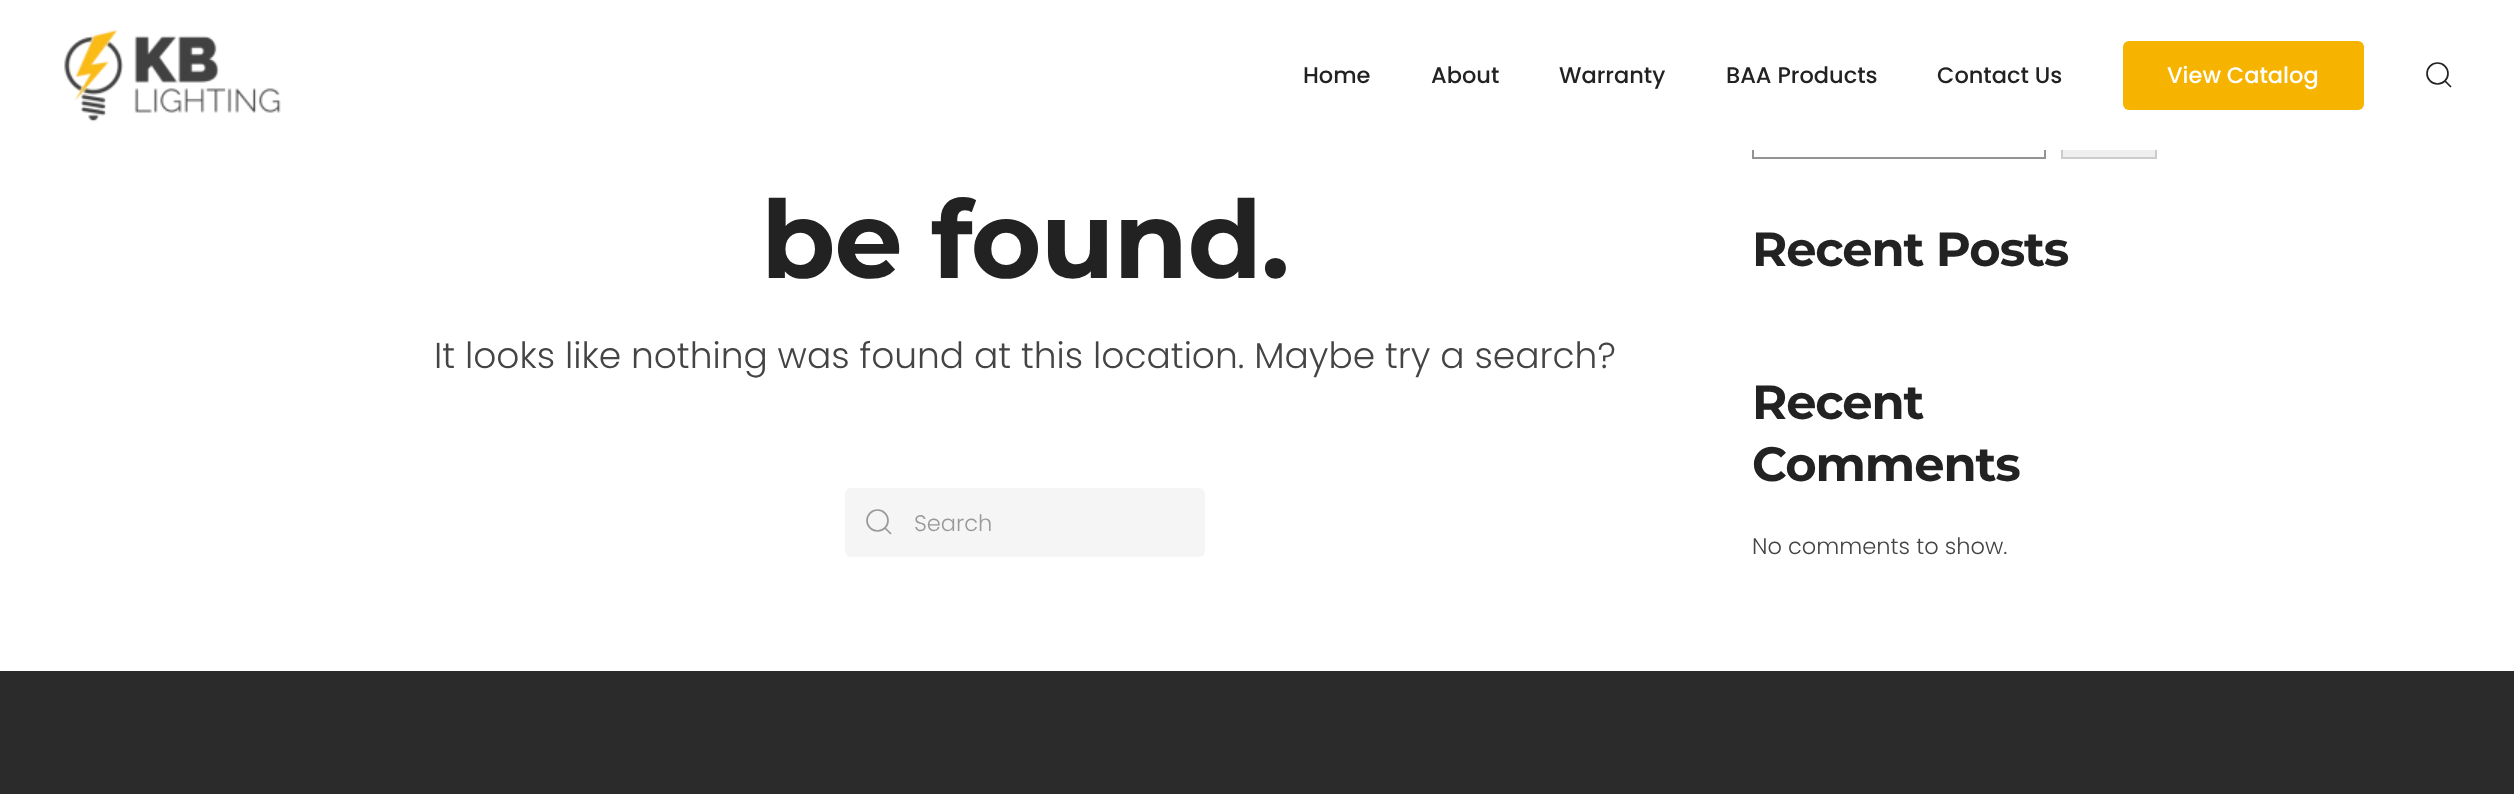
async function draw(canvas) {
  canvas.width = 2514;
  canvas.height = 794;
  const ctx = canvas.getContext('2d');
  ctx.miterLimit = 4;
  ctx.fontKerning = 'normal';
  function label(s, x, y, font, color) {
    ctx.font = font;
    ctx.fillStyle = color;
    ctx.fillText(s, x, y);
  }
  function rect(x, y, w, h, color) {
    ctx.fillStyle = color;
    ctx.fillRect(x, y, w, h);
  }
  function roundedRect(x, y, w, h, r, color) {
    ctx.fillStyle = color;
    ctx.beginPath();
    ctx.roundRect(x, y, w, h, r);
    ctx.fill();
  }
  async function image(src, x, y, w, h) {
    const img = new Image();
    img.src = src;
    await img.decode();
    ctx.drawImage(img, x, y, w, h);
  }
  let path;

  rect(0, 0, 2514, 794, '#fff');
  ctx.strokeStyle = '#949494';
  ctx.lineWidth = 2;
  ctx.strokeRect(1753, 97, 292, 61);
  rect(2063, 150, 92, 7, '#efefef');
  ctx.strokeStyle = '#ccc';
  ctx.strokeRect(2062, 97, 94, 61);
  rect(1752, 96, 405, 54, '#fff');
  await image('assets/img1.png', 64, 29, 217, 93);
  label('Home', 1303, 83, '500 22.5px Poppins', '#222');
  label('About', 1431, 83, '500 22.5px Poppins', '#222');
  label('Warranty', 1559, 83, '500 22.5px Poppins', '#222');
  label('BAA Products', 1726, 83, '500 22.5px Poppins', '#222');
  label('Contact Us', 1937, 83, '500 22.5px Poppins', '#222');
  roundedRect(2123, 41, 241, 69, 6, '#f6b300');
  label('View Catalog', 2167, 83, '500 22.5px Poppins', '#fff');
  ctx.beginPath();
  ctx.arc(2437.5, 73.5, 10.5, 0, 2 * Math.PI);
  ctx.strokeStyle = '#222';
  ctx.lineWidth = 1.7;
  ctx.stroke();
  path = new Path2D('M2445 81L2451 87Z');
  ctx.stroke(path);
  ctx.letterSpacing = '-1.1px';
  label('be found.', 761, 278, '100 108px Montserrat', '#222');
  ctx.letterSpacing = '0px';
  label('It looks like nothing was found at this location. Maybe try a search?', 434, 368, '300 36px Poppins', '#444');
  roundedRect(845, 488, 360, 69, 6, '#f5f5f5');
  ctx.beginPath();
  ctx.arc(877.5, 520.5, 10.5, 0, 2 * Math.PI);
  ctx.strokeStyle = '#999';
  ctx.stroke();
  path = new Path2D('M885 528L891 534Z');
  ctx.stroke(path);
  label('Search', 914, 531, '300 22.5px Poppins', '#999');
  ctx.letterSpacing = '-1.1px';
  label('Recent Posts', 1752, 266, '100 48px Montserrat', '#222');
  label('Recent', 1752, 419, '100 48px Montserrat', '#222');
  label('Comments', 1752, 481, '100 48px Montserrat', '#222');
  ctx.letterSpacing = '0px';
  label('No comments to show.', 1752, 554, '300 22.5px Poppins', '#444');
  rect(0, 671, 2514, 123, '#2c2b2b');
}

draw(document.querySelector('canvas'));
